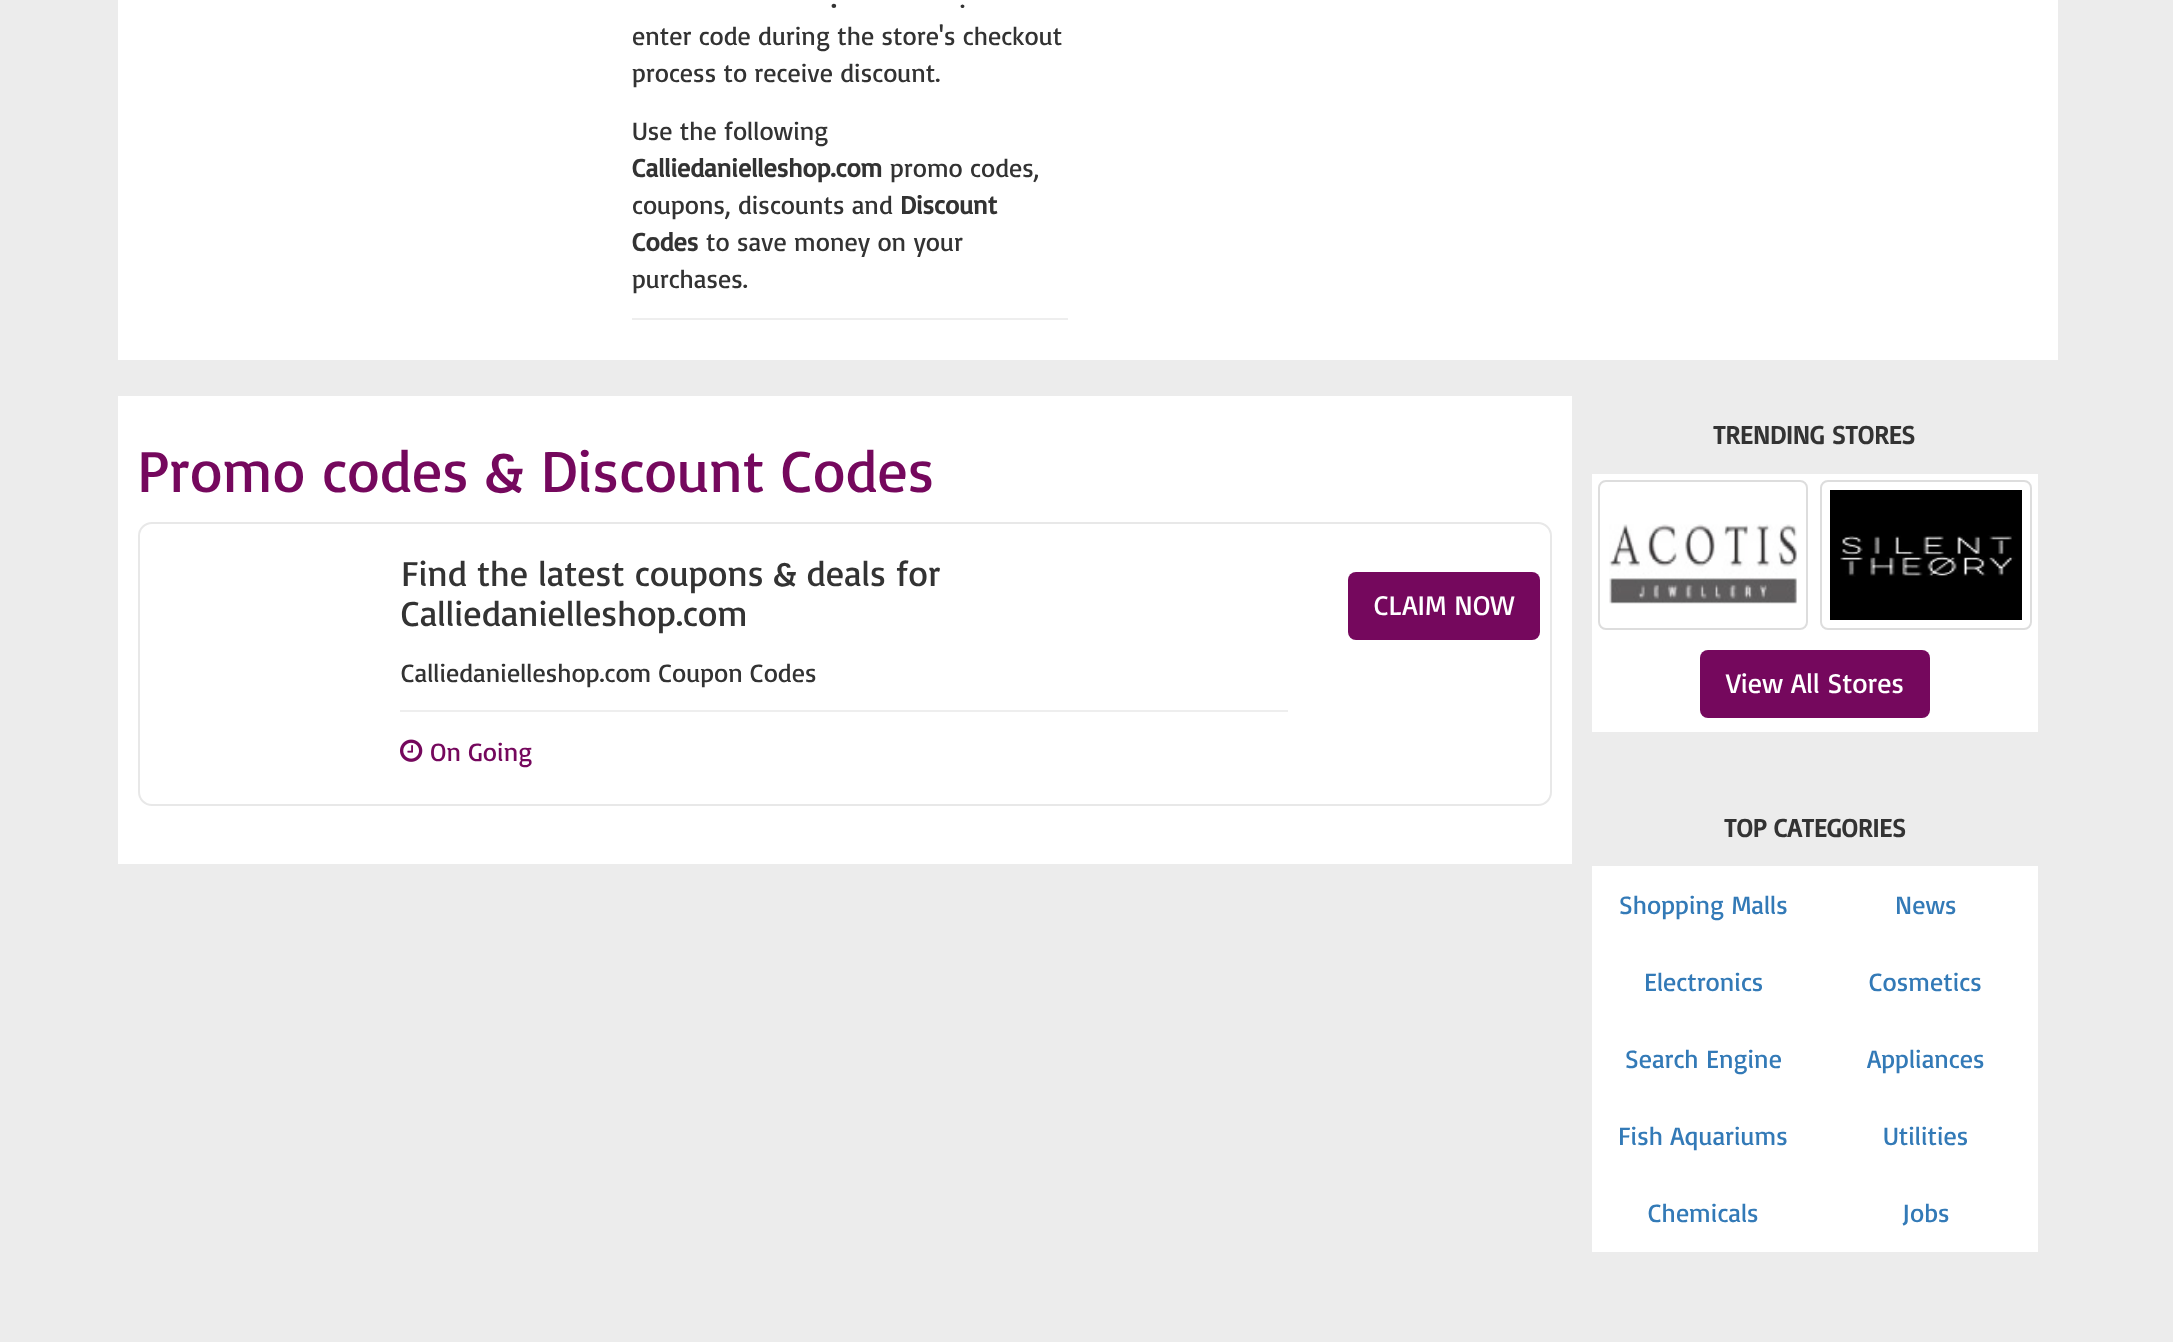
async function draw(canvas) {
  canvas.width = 2173;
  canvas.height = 1342;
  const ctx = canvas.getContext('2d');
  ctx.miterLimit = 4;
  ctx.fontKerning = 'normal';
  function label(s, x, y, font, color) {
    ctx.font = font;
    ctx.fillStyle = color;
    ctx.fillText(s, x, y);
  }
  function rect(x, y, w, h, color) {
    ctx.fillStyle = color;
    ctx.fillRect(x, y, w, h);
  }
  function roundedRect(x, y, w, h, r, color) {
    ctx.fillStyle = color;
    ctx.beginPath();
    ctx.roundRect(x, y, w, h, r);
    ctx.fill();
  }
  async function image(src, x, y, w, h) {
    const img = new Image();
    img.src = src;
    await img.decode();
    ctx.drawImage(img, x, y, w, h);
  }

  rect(0, 0, 2173, 1342, '#ececec');
  rect(118, 0, 1940, 360, '#fff');
  label('.', 831, 8, 'bold 26px Basic', '#333');
  label('.', 960, 8, '26px Basic', '#333');
  label('enter code during the store\'s checkout', 632, 45, '26px Basic', '#333');
  label('process to receive discount.', 632, 82, '26px Basic', '#333');
  label('Use the following', 632, 140, '26px Basic', '#333');
  label('Calliedanielleshop.com', 632, 177, 'bold 26px Basic', '#333');
  label('promo codes,', 890, 177, '26px Basic', '#333');
  label('coupons, discounts and', 632, 214, '26px Basic', '#333');
  label('Discount', 900, 214, 'bold 26px Basic', '#333');
  label('Codes', 632, 251, 'bold 26px Basic', '#333');
  label('to save money on your', 706, 251, '26px Basic', '#333');
  label('purchases.', 632, 288, '26px Basic', '#333');
  rect(632, 318, 436, 2, '#eee');
  rect(118, 396, 1454, 468, '#fff');
  label('Promo codes & Discount Codes', 137, 492, '60px Basic', '#75085d');
  ctx.beginPath();
  ctx.roundRect(139, 523, 1412, 282, 13);
  ctx.strokeStyle = '#e8e8e8';
  ctx.lineWidth = 2;
  ctx.stroke();
  label('Find the latest coupons & deals for', 401, 586, '36px Basic', '#333');
  label('Calliedanielleshop.com', 401, 626, '36px Basic', '#333');
  label('Calliedanielleshop.com Coupon Codes', 401, 682, '26px Basic', '#333');
  rect(400, 710, 888, 2, '#eee');
  await image('assets/img1.png', 400, 739, 23, 23);
  label('On Going', 430, 761, '26px Basic', '#75085d');
  roundedRect(1348, 572, 192, 68, 8, '#75085d');
  label('CLAIM NOW', 1374, 615, '28px Basic', '#fff');
  label('TRENDING STORES', 1713, 444, 'bold 26px Basic', '#333');
  rect(1592, 474, 446, 258, '#fff');
  ctx.beginPath();
  ctx.roundRect(1599, 481, 208, 148, 7);
  ctx.strokeStyle = '#ddd';
  ctx.stroke();
  await image('assets/img2.png', 1609, 524, 188, 80);
  ctx.beginPath();
  ctx.roundRect(1821, 481, 210, 148, 7);
  ctx.stroke();
  await image('assets/img3.png', 1830, 490, 192, 130);
  roundedRect(1700, 650, 230, 68, 8, '#75085d');
  label('View All Stores', 1726, 693, '28px Basic', '#fff');
  label('TOP CATEGORIES', 1724, 837, 'bold 26px Basic', '#333');
  rect(1592, 866, 446, 386, '#fff');
  label('Shopping Malls', 1619, 914, '26px Basic', '#337ab7');
  label('News', 1895, 914, '26px Basic', '#337ab7');
  label('Electronics', 1644, 991, '26px Basic', '#337ab7');
  label('Cosmetics', 1869, 991, '26px Basic', '#337ab7');
  label('Search Engine', 1625, 1068, '26px Basic', '#337ab7');
  label('Appliances', 1867, 1068, '26px Basic', '#337ab7');
  label('Fish Aquariums', 1618, 1145, '26px Basic', '#337ab7');
  label('Utilities', 1883, 1145, '26px Basic', '#337ab7');
  label('Chemicals', 1648, 1222, '26px Basic', '#337ab7');
  label('Jobs', 1902, 1222, '26px Basic', '#337ab7');
}

draw(document.querySelector('canvas'));
